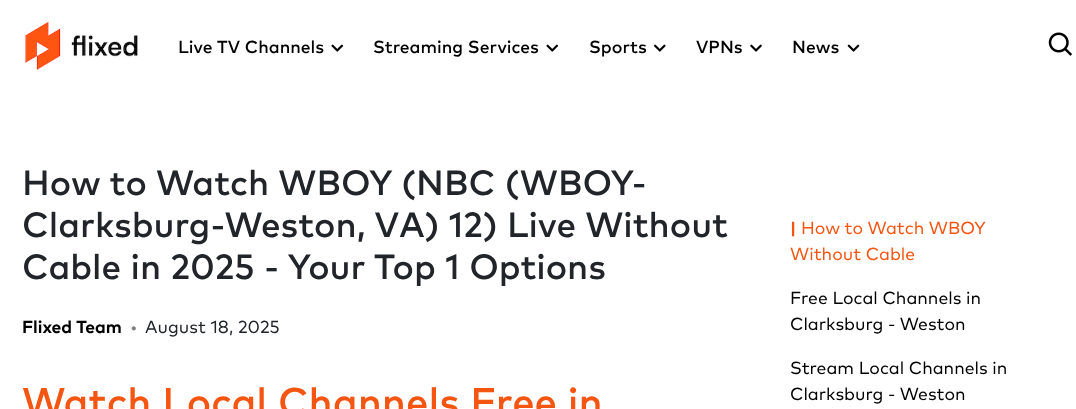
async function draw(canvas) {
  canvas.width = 1076;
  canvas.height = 409;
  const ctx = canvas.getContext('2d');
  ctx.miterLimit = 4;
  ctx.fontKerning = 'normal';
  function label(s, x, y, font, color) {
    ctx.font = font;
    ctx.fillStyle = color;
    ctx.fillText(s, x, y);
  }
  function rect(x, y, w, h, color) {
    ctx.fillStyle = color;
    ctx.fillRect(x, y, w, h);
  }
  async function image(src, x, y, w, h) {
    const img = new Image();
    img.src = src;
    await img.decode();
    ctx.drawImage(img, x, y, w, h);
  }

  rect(0, 0, 1076, 409, '#fff');
  await image('assets/img1.png', 25, 21, 113, 49);
  label('Live TV Channels', 178, 53, '500 17.5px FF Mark', '#000');
  await image('assets/img2.png', 331, 44, 13, 8);
  label('Streaming Services', 373, 53, '500 17.5px FF Mark', '#000');
  await image('assets/img2.png', 546, 44, 13, 8);
  label('Sports', 589, 53, '500 17.5px FF Mark', '#000');
  await image('assets/img3.png', 653, 44, 13, 8);
  label('VPNs', 696, 53, '500 17.5px FF Mark', '#000');
  await image('assets/img4.png', 750, 44, 12, 8);
  label('News', 792, 53, '500 17.5px FF Mark', '#000');
  await image('assets/img5.png', 847, 44, 13, 8);
  await image('assets/img6.png', 1048, 32, 24, 24);
  label('How to Watch WBOY (NBC (WBOY-', 22, 195, '500 35px FF Mark', '#212529');
  label('Clarksburg-Weston, VA) 12) Live Without', 22, 237, '500 35px FF Mark', '#212529');
  label('Cable in 2025 - Your Top 1 Options', 22, 279, '500 35px FF Mark', '#212529');
  label('Flixed Team', 22, 333, 'bold 17.5px FF Mark', '#000');
  label('•', 130, 333, '17.5px FF Mark', '#808080');
  label('August 18, 2025', 145, 333, '17.5px FF Mark', '#212529');
  label('Watch Local Channels Free in', 22, 416, '500 40px FF Mark', '#f45511');
  label('|', 790, 234, 'bold 17.5px FF Mark', '#f45511');
  label('How to Watch WBOY', 801, 234, '17.5px FF Mark', '#f45511');
  label('Without Cable', 790, 260, '17.5px FF Mark', '#f45511');
  label('Free Local Channels in', 790, 304, '17.5px FF Mark', '#000');
  label('Clarksburg - Weston', 790, 330, '17.5px FF Mark', '#000');
  label('Stream Local Channels in', 790, 374, '17.5px FF Mark', '#000');
  label('Clarksburg - Weston', 790, 400, '17.5px FF Mark', '#000');
}

draw(document.querySelector('canvas'));
